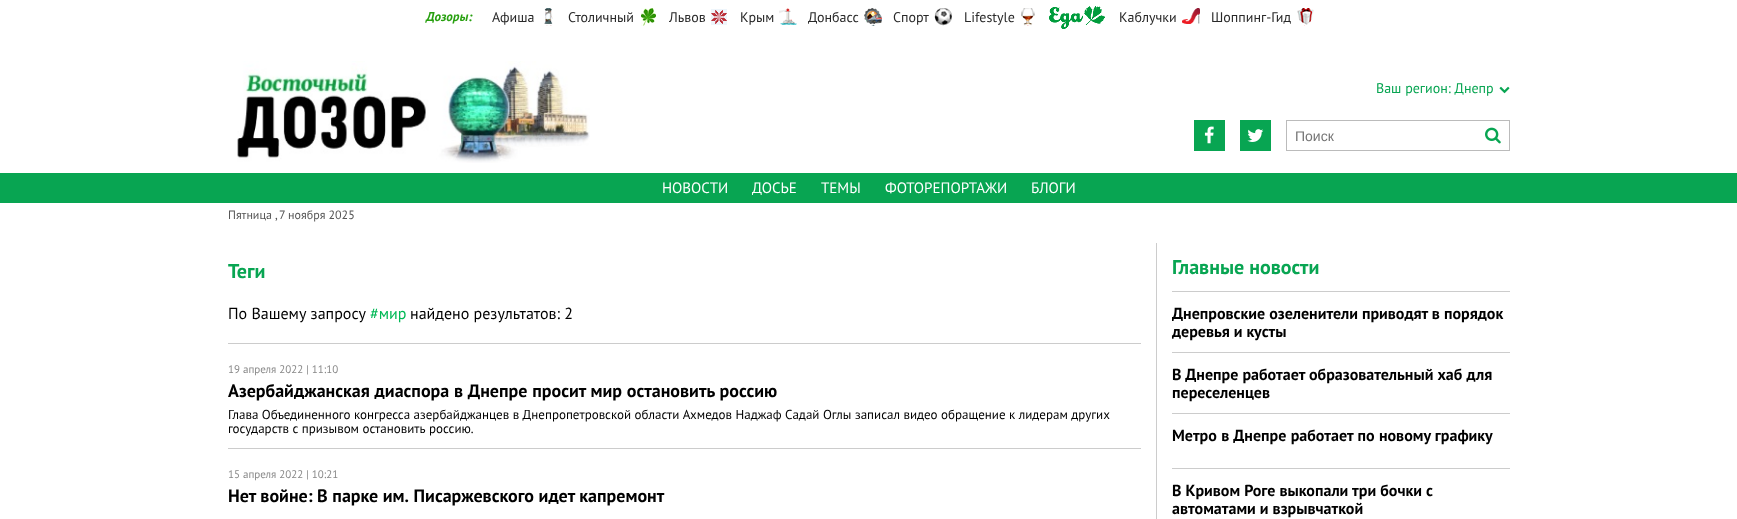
async function draw(canvas) {
  canvas.width = 1737;
  canvas.height = 519;
  const ctx = canvas.getContext('2d');
  ctx.miterLimit = 4;
  ctx.fontKerning = 'normal';
  function label(s, x, y, font, color) {
    ctx.font = font;
    ctx.fillStyle = color;
    ctx.fillText(s, x, y);
  }
  function rect(x, y, w, h, color) {
    ctx.fillStyle = color;
    ctx.fillRect(x, y, w, h);
  }
  async function image(src, x, y, w, h) {
    const img = new Image();
    img.src = src;
    await img.decode();
    ctx.drawImage(img, x, y, w, h);
  }

  rect(0, 0, 1737, 519, '#fff');
  label('Дозоры:', 426, 21, 'italic bold 13px PT Sans', '#28a010');
  label('Афиша', 492, 22, '14px PT Sans', '#292929');
  await image('assets/img1.png', 544, 8, 9, 18);
  label('Столичный', 568, 22, '14px PT Sans', '#292929');
  await image('assets/img2.png', 641, 8, 15, 18);
  label('Львов', 669, 22, '14px PT Sans', '#292929');
  await image('assets/img3.png', 711, 9, 16, 16);
  label('Крым', 740, 22, '14px PT Sans', '#292929');
  await image('assets/img4.png', 779, 8, 18, 17);
  label('Донбасс', 808, 22, '14px PT Sans', '#292929');
  await image('assets/img5.png', 864, 8, 18, 18);
  label('Спорт', 893, 22, '14px PT Sans', '#292929');
  await image('assets/img6.png', 934, 8, 18, 18);
  label('Lifestyle', 964, 22, '14px PT Sans', '#292929');
  await image('assets/img7.png', 1021, 8, 14, 18);
  await image('assets/img8.png', 1049, 6, 56, 23);
  label('Каблучки', 1119, 22, '14px PT Sans', '#292929');
  await image('assets/img9.png', 1182, 8, 18, 16);
  label('Шоппинг-Гид', 1211, 22, '14px PT Sans', '#292929');
  await image('assets/img10.png', 1297, 8, 17, 18);
  await image('assets/img11.png', 237, 61, 353, 102);
  label('Ваш регион: Днепр', 1376, 93, '14px PT Sans', '#08a552');
  await image('assets/img12.png', 1499, 86, 11, 8);
  rect(1194, 120, 31, 31, '#08a552');
  await image('assets/img13.png', 1204, 126, 10, 18);
  rect(1240, 120, 31, 31, '#08a552');
  await image('assets/img14.png', 1247, 129, 17, 13);
  ctx.strokeStyle = '#bbb';
  ctx.strokeRect(1286.5, 120.5, 223, 30);
  label('Поиск', 1295, 141, '14px Liberation Sans', '#757575');
  await image('assets/img15.png', 1485, 127, 16, 17);
  rect(0, 173, 1737, 30, '#08a552');
  label('НОВОСТИ', 662, 193, '15px PT Sans', '#fff');
  label('ДОСЬЕ', 752, 193, '15px PT Sans', '#fff');
  label('ТЕМЫ', 821, 193, '15px PT Sans', '#fff');
  label('ФОТОРЕПОРТАЖИ', 885, 193, '15px PT Sans', '#fff');
  label('БЛОГИ', 1031, 193, '15px PT Sans', '#fff');
  label('Пятница ,', 228, 219, '12px PT Sans', '#555');
  label('7 ноября 2025', 279, 219, '12px PT Sans', '#555');
  rect(1156, 243, 1, 276, '#ccc');
  label('Теги', 228, 278, 'bold 20px PT Sans', '#08a552');
  label('По Вашему запросу', 228, 319, '16px PT Sans', '#000');
  label('#мир', 370, 319, '16px PT Sans', '#00b956');
  label('найдено результатов: 2', 410, 319, '16px PT Sans', '#000');
  rect(228, 343, 913, 1, '#ccc');
  label('19 апреля 2022 | 11:10', 228, 373, '11px PT Sans', '#888');
  ctx.wordSpacing = '0.25px';
  label('Азербайджанская диаспора в Днепре просит мир остановить россию', 228, 397, 'bold 18px PT Sans', '#000');
  ctx.wordSpacing = '0px';
  label('Глава Объединенного конгресса азербайджанцев в Днепропетровской области Ахмедов Наджаф Садай Оглы записал видео обращение к лидерам других', 228, 419, '13px PT Sans', '#000');
  label('государств с призывом остановить россию.', 228, 433, '13px PT Sans', '#000');
  rect(228, 448, 913, 1, '#ccc');
  label('15 апреля 2022 | 10:21', 228, 478, '11px PT Sans', '#888');
  label('Нет войне: В парке им. Писаржевского идет капремонт', 228, 502, 'bold 18px PT Sans', '#000');
  label('Главные новости', 1172, 274, 'bold 20px PT Sans', '#08a552');
  rect(1172, 291, 338, 1, '#ccc');
  label('Днепровские озеленители приводят в порядок', 1172, 319, 'bold 16px PT Sans', '#000');
  label('деревья и кусты', 1172, 337, 'bold 16px PT Sans', '#000');
  rect(1172, 352, 338, 1, '#ccc');
  label('В Днепре работает образовательный хаб для', 1172, 380, 'bold 16px PT Sans', '#000');
  label('переселенцев', 1172, 398, 'bold 16px PT Sans', '#000');
  rect(1172, 413, 338, 1, '#ccc');
  ctx.wordSpacing = '0.25px';
  label('Метро в Днепре работает по новому графику', 1172, 441, 'bold 16px PT Sans', '#000');
  rect(1172, 468, 338, 1, '#ccc');
  ctx.wordSpacing = '0px';
  label('В Кривом Роге выкопали три бочки с', 1172, 496, 'bold 16px PT Sans', '#000');
  label('автоматами и взрывчаткой', 1172, 514, 'bold 16px PT Sans', '#000');
}

draw(document.querySelector('canvas'));
